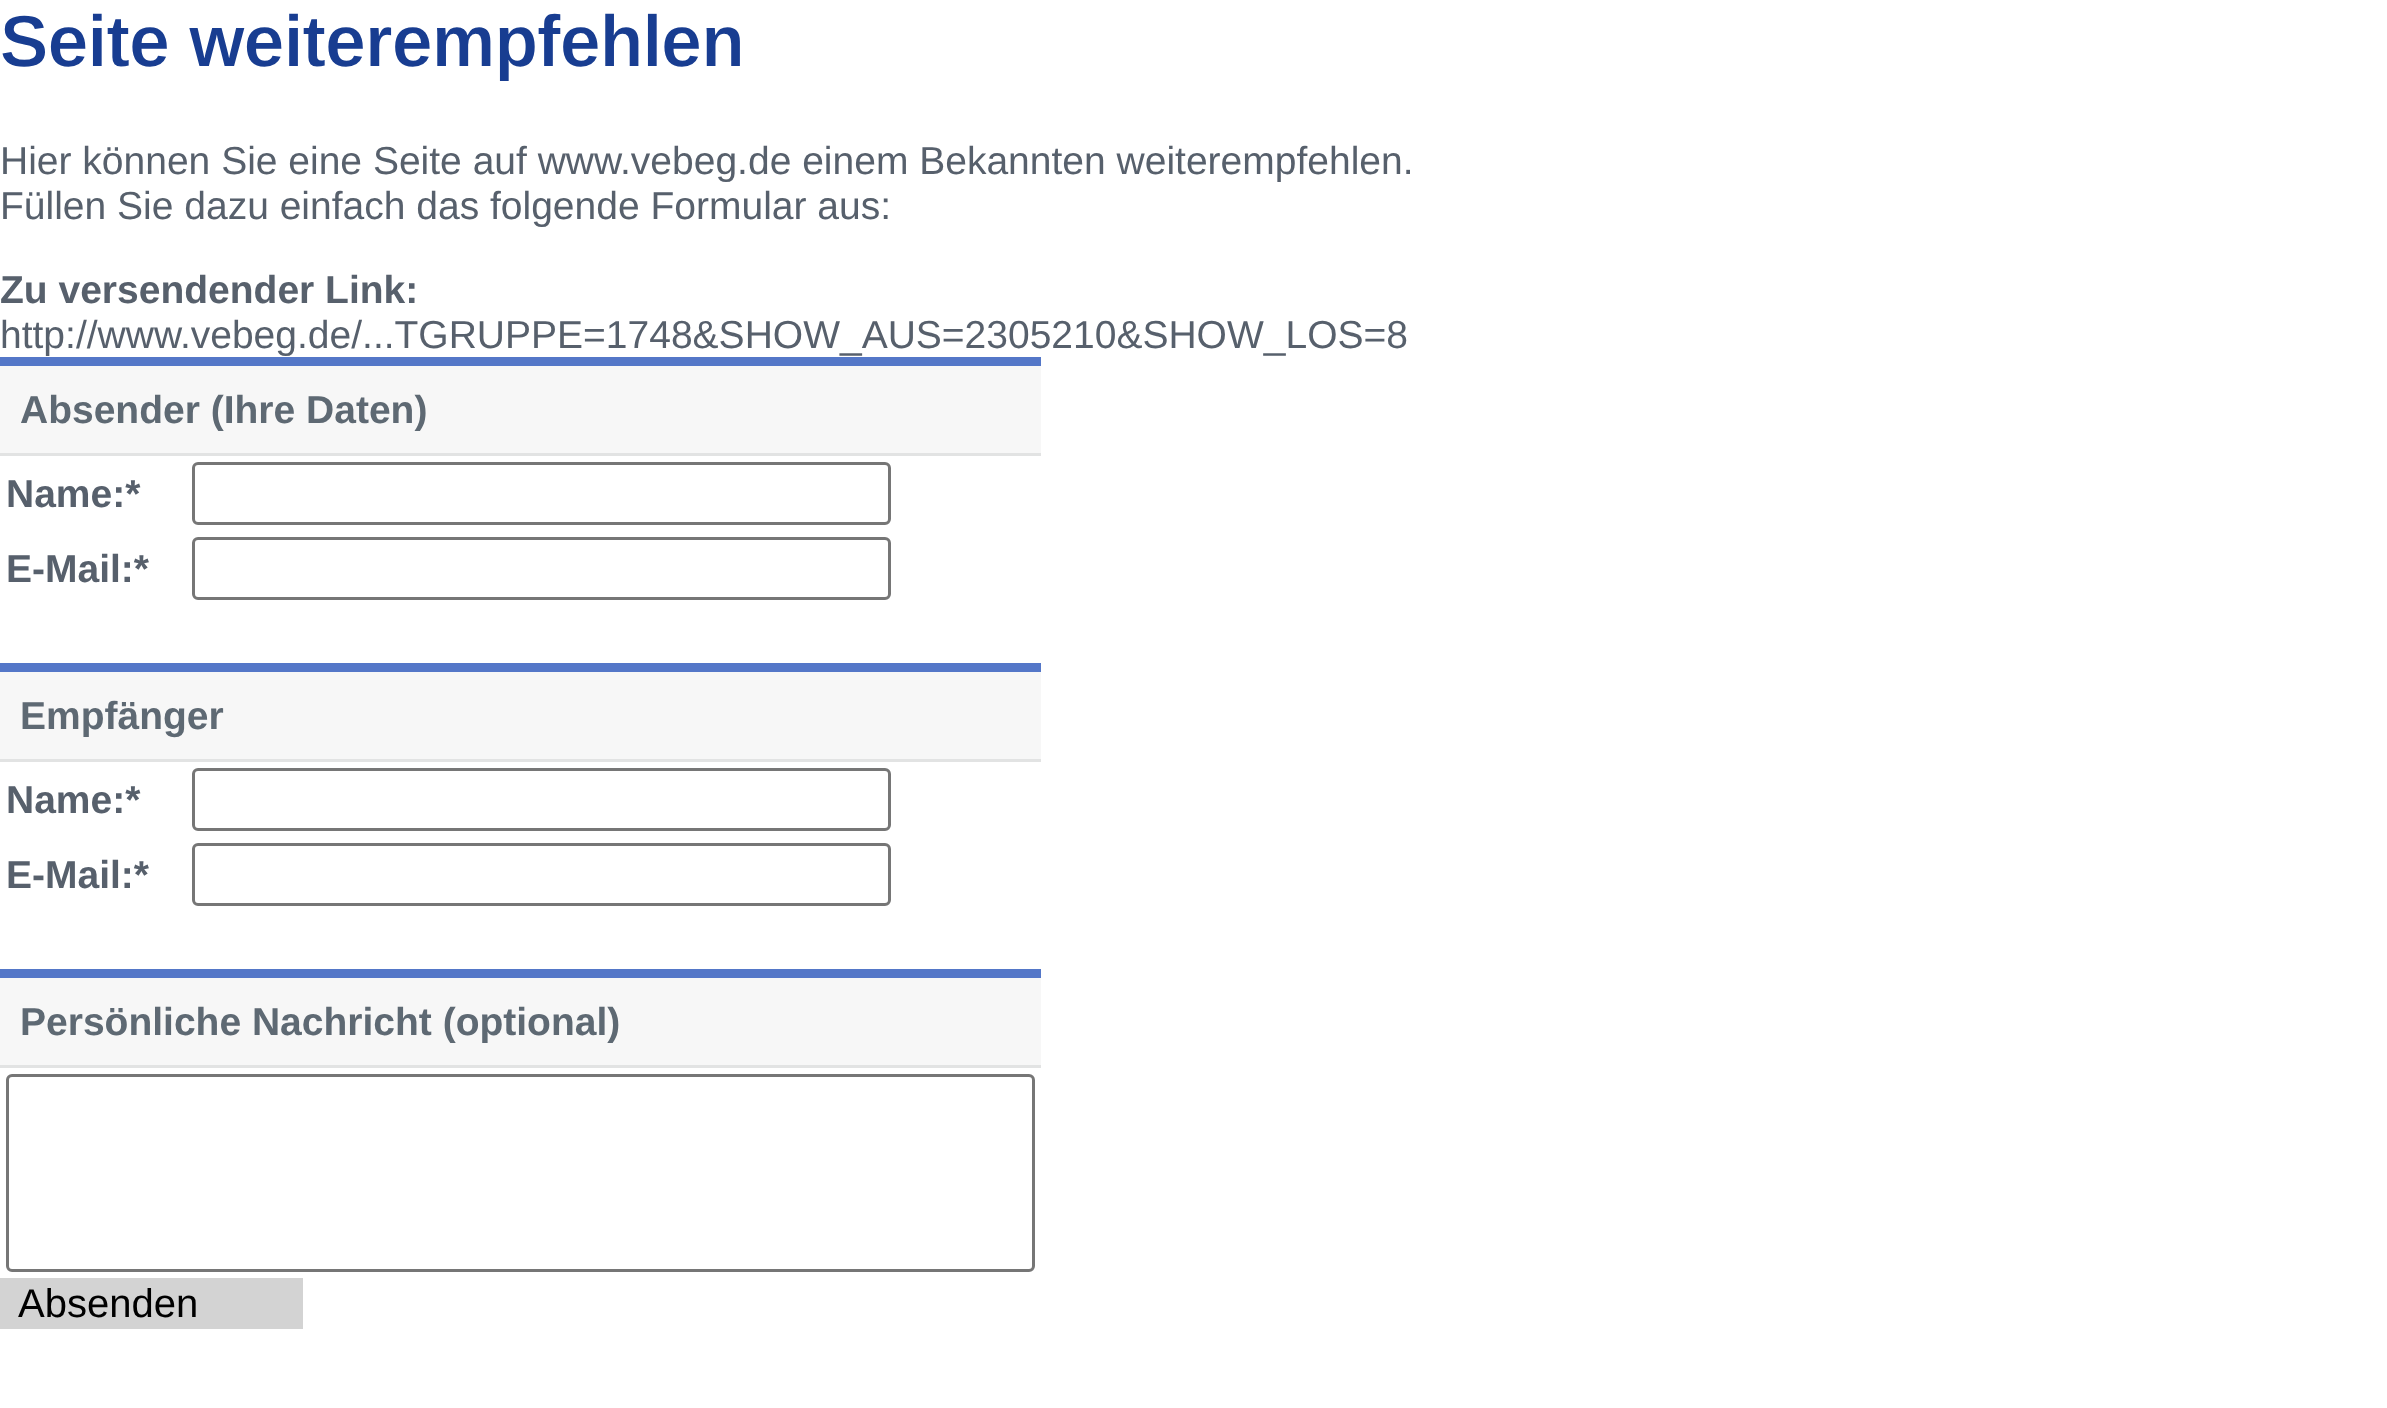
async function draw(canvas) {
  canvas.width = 2387;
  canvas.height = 1408;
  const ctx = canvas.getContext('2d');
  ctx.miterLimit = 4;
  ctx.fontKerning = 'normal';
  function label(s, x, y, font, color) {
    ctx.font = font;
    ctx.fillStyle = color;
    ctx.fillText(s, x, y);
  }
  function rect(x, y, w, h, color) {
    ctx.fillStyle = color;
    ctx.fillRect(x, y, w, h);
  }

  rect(0, 0, 2387, 1408, '#fff');
  label('Seite weiterempfehlen', 0, 66, '600 72px Arimo', '#183d91');
  label('Hier können Sie eine Seite auf www.vebeg.de einem Bekannten weiterempfehlen.', 0, 174, '39px Arimo', '#57606c');
  label('Füllen Sie dazu einfach das folgende Formular aus:', 0, 219, '39px Arimo', '#57606c');
  label('Zu versendender Link:', 0, 303, 'bold 39px Arimo', '#57606c');
  label('http://www.vebeg.de/...TGRUPPE=1748&SHOW_AUS=2305210&SHOW_LOS=8', 0, 348, '39px Arimo', '#57606c');
  rect(0, 366, 1041, 87, '#f7f7f7');
  rect(0, 357, 1041, 9, '#5477c8');
  rect(0, 453, 1041, 3, '#e2e3e3');
  label('Absender (Ihre Daten)', 20, 423, 'bold 39px Arimo', '#5e6973');
  label('Name:*', 6, 507, 'bold 39px Arimo', '#57606c');
  ctx.beginPath();
  ctx.roundRect(193.5, 463.5, 696, 60, 4.5);
  ctx.strokeStyle = '#767676';
  ctx.lineWidth = 3;
  ctx.stroke();
  label('E-Mail:*', 6, 582, 'bold 39px Arimo', '#57606c');
  ctx.beginPath();
  ctx.roundRect(193.5, 538.5, 696, 60, 4.5);
  ctx.stroke();
  rect(0, 672, 1041, 87, '#f7f7f7');
  rect(0, 663, 1041, 9, '#5477c8');
  rect(0, 759, 1041, 3, '#e2e3e3');
  label('Empfänger', 20, 729, 'bold 39px Arimo', '#5e6973');
  label('Name:*', 6, 813, 'bold 39px Arimo', '#57606c');
  ctx.beginPath();
  ctx.roundRect(193.5, 769.5, 696, 60, 4.5);
  ctx.stroke();
  label('E-Mail:*', 6, 888, 'bold 39px Arimo', '#57606c');
  ctx.beginPath();
  ctx.roundRect(193.5, 844.5, 696, 60, 4.5);
  ctx.stroke();
  rect(0, 978, 1041, 87, '#f7f7f7');
  rect(0, 969, 1041, 9, '#5477c8');
  rect(0, 1065, 1041, 3, '#e2e3e3');
  label('Persönliche Nachricht (optional)', 20, 1035, 'bold 39px Arimo', '#5e6973');
  ctx.beginPath();
  ctx.roundRect(7.5, 1075.5, 1026, 195, 4.5);
  ctx.stroke();
  rect(0, 1278, 303, 51, '#d3d3d3');
  label('Absenden', 18, 1317, '40px Liberation Sans', '#000');
}

draw(document.querySelector('canvas'));
